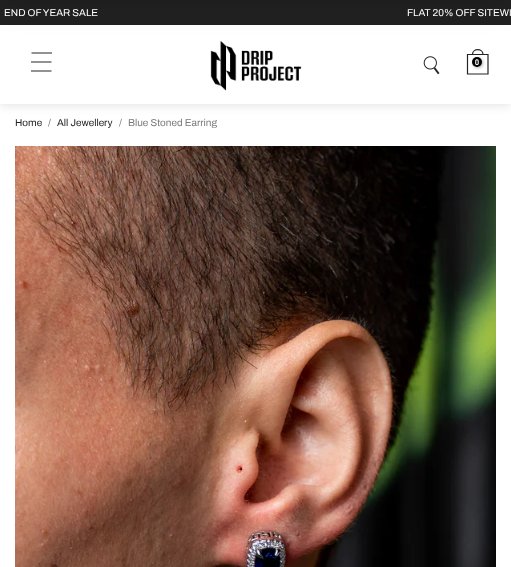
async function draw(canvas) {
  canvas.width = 511;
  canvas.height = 567;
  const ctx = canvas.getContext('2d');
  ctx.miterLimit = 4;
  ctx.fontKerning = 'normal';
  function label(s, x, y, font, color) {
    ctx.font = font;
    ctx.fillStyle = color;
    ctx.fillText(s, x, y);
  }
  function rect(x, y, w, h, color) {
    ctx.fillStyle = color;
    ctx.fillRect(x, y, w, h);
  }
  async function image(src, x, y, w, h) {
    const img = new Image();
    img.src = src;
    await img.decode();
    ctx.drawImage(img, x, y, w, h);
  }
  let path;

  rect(0, 0, 511, 567, '#fff');
  rect(0, 0, 511, 25, '#222');
  ctx.save();
  path = new Path2D('M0 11H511V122H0ZM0 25H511V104H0Z');
  ctx.clip(path, 'evenodd');
  ctx.fillStyle = '#0000001a';
  ctx.filter = 'blur(5px)';
  ctx.beginPath();
  ctx.rect(0, 27, 511, 79);
  ctx.fill();
  ctx.filter = 'none';
  ctx.restore();
  await image('assets/img2.png', 210, 40, 92, 51);
  ctx.fillStyle = '#00000021';
  ctx.filter = 'blur(13px)';
  ctx.beginPath();
  ctx.rect(0, -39, 511, 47);
  ctx.fill();
  ctx.filter = 'none';
  label('END OF YEAR SALE', 4, 16, '10px Archivo', '#fff');
  label('FLAT 20% OFF SITEWI', 407, 16, '10px Archivo', '#fff');
  await image('assets/img1.png', 31, 52, 21, 20);
  await image('assets/img3.png', 423, 56, 17, 19);
  path = new Path2D('M467.5 54.5H488V74H467.5ZM483 54.5C483 48 472.5 48 472.5 54.5');
  ctx.strokeStyle = '#252525';
  ctx.lineWidth = 1.2;
  ctx.stroke(path);
  ctx.fillStyle = '#0000004d';
  ctx.filter = 'blur(1.5px)';
  ctx.beginPath();
  ctx.roundRect(473, 58, 10, 10, 5);
  ctx.fill();
  ctx.filter = 'none';
  ctx.fillStyle = '#000';
  ctx.beginPath();
  ctx.arc(477, 62, 5, 0, 2 * Math.PI);
  ctx.fill();
  label('0', 475, 65, '8px Bayon', '#fff');
  label('Home', 15, 126, '10px Archivo', '#222');
  label('/', 48, 126, '10px Archivo', '#7a7a7a');
  label('All Jewellery', 57, 126, '10px Archivo', '#222');
  label('/', 119, 126, '10px Archivo', '#7a7a7a');
  label('Blue Stoned Earring', 128, 126, '10px Archivo', '#7a7a7a');
  await image('assets/img4.png', 15, 146, 481, 421);
}

draw(document.querySelector('canvas'));
